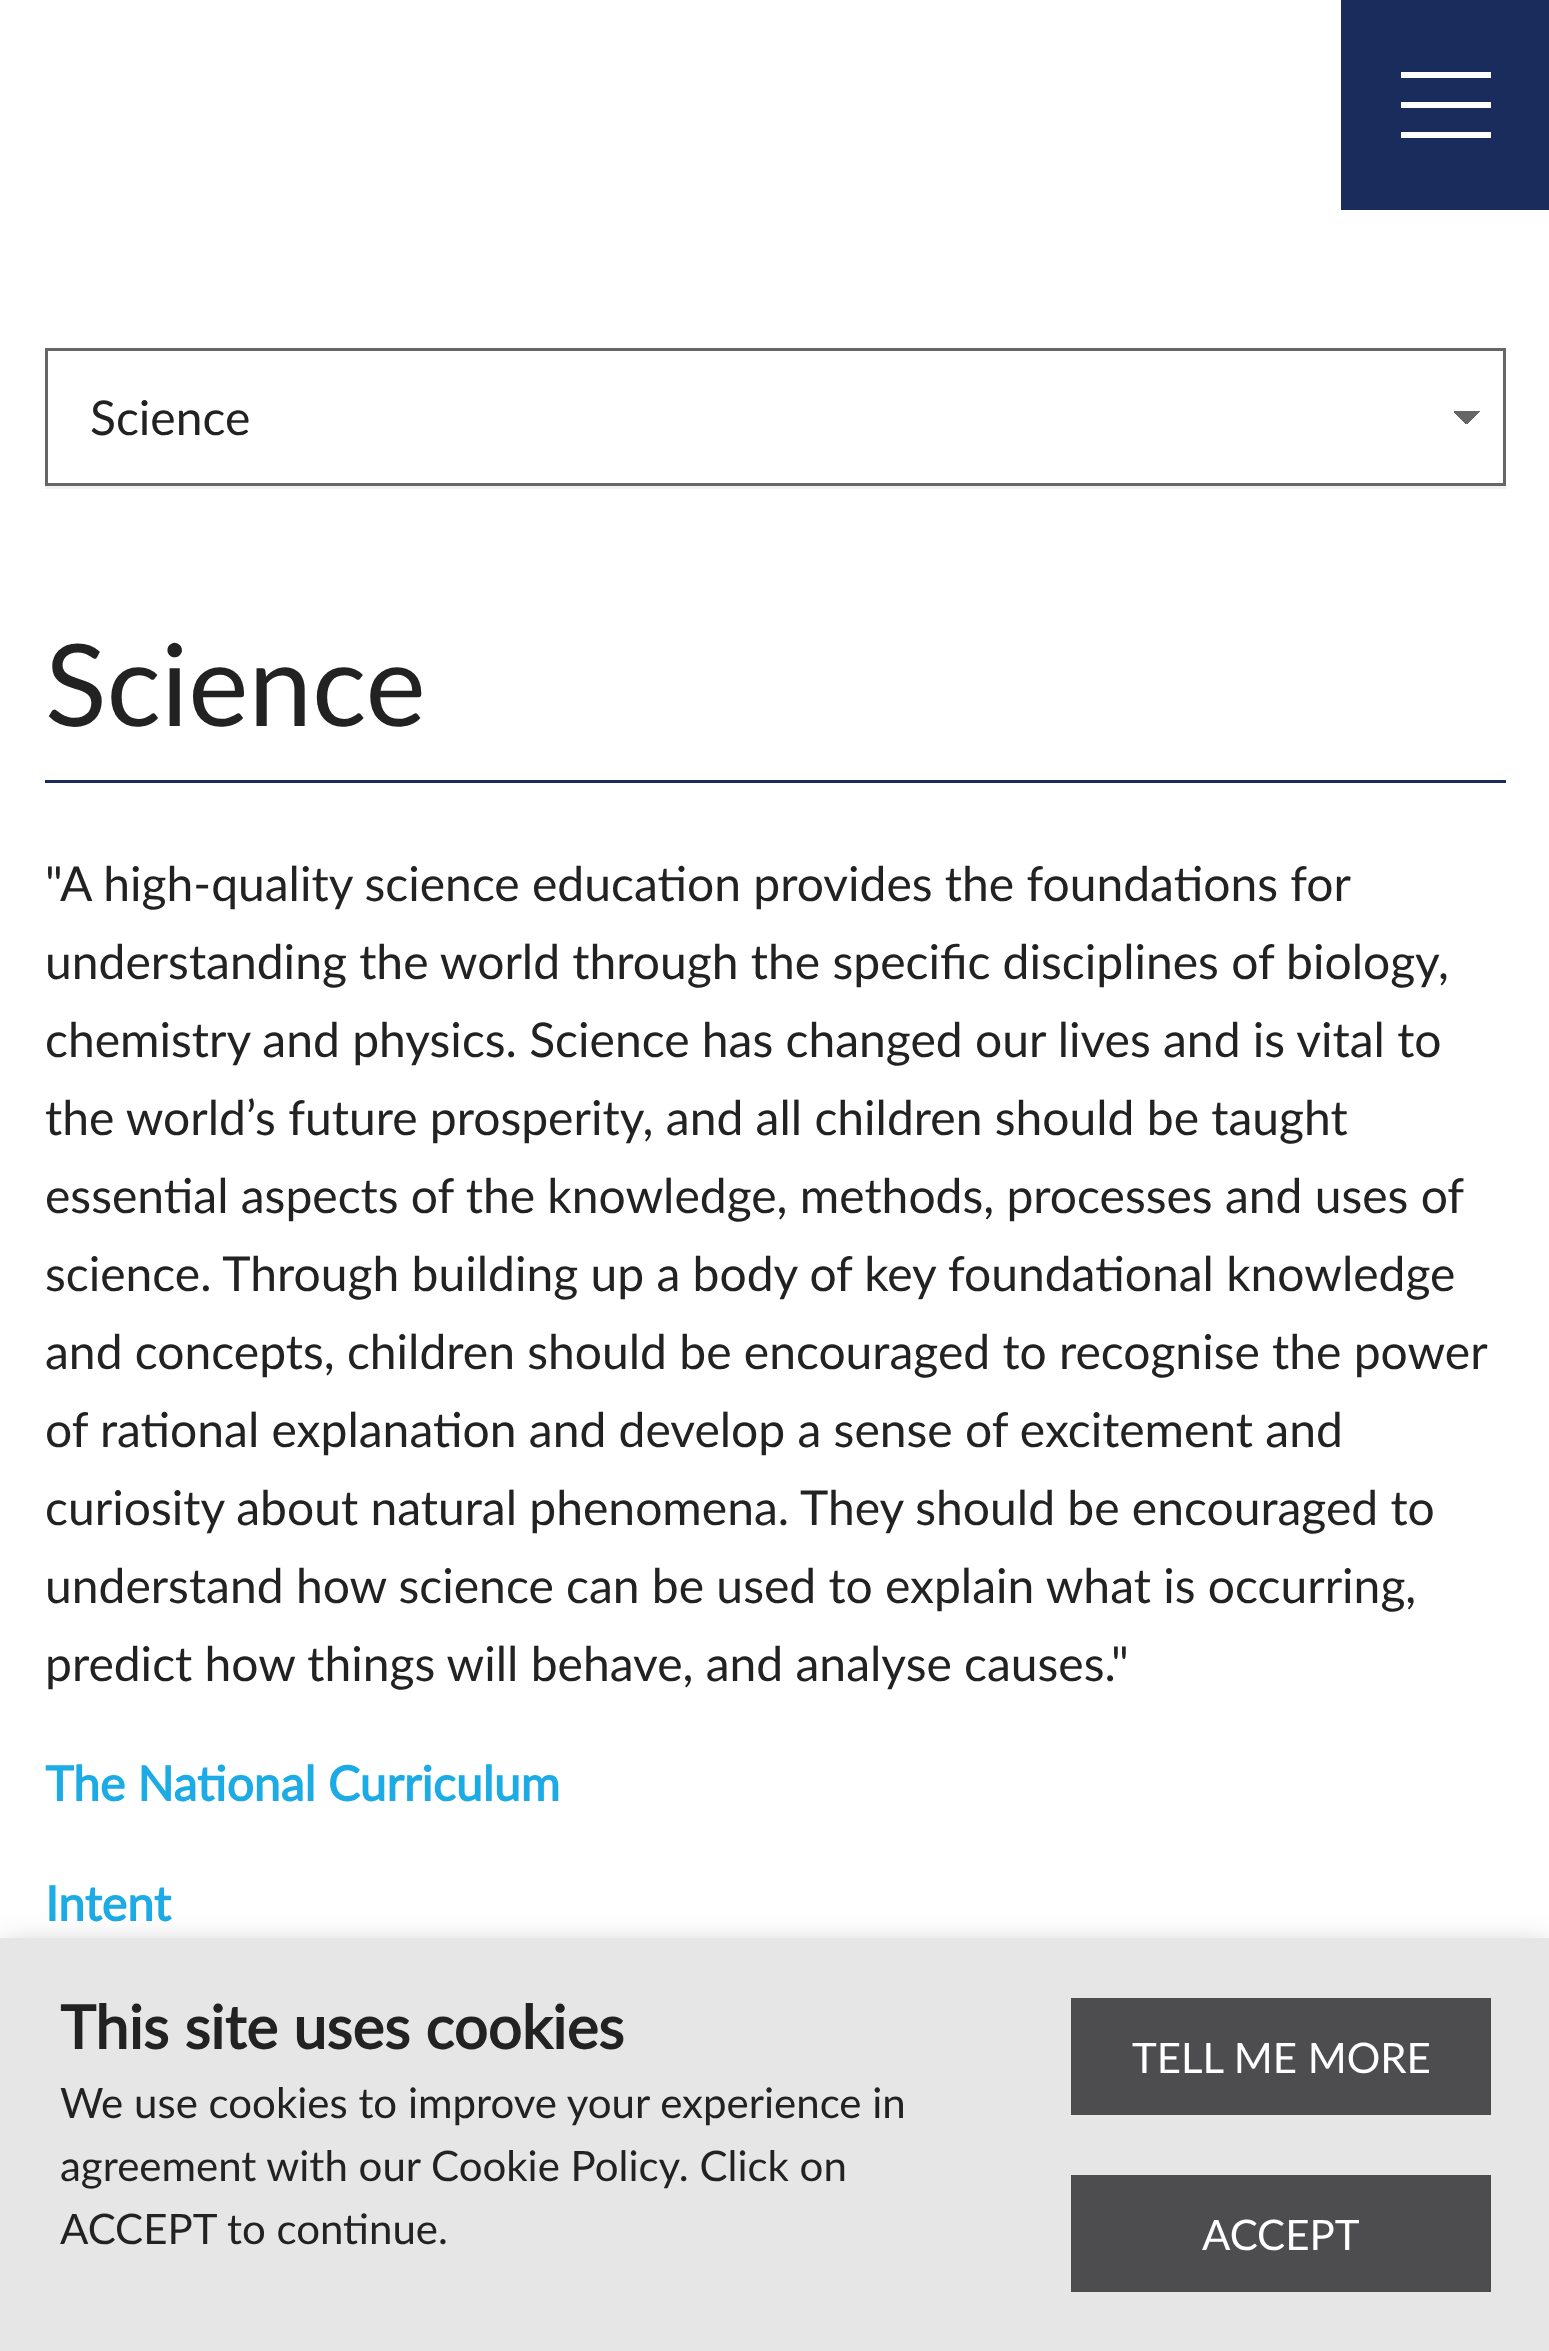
async function draw(canvas) {
  canvas.width = 1549;
  canvas.height = 2351;
  const ctx = canvas.getContext('2d');
  ctx.miterLimit = 4;
  ctx.fontKerning = 'normal';
  function label(s, x, y, font, color) {
    ctx.font = font;
    ctx.fillStyle = color;
    ctx.fillText(s, x, y);
  }
  function rect(x, y, w, h, color) {
    ctx.fillStyle = color;
    ctx.fillRect(x, y, w, h);
  }
  let gradient;

  rect(0, 0, 1549, 2351, '#fff');
  rect(1341, 0, 208, 210, '#1a2c5c');
  rect(1401, 102, 90, 6, '#fff');
  rect(1401, 72, 90, 6, '#fff');
  rect(1401, 132, 90, 6, '#fff');
  rect(45, 486, 1461, 3, '#f1f1f1');
  gradient = ctx.createLinearGradient(1467, 410, 1482, 425);
  gradient.addColorStop(0.5, '#666');
  gradient.addColorStop(0.5, '#fff');
  ctx.fillStyle = gradient;
  ctx.fillRect(1467, 411, 14, 13);
  gradient = ctx.createLinearGradient(1452, 425, 1467, 410);
  gradient.addColorStop(0.5, '#fff');
  gradient.addColorStop(0.5, '#666');
  ctx.fillStyle = gradient;
  ctx.fillRect(1454, 411, 13, 13);
  ctx.strokeStyle = '#666';
  ctx.lineWidth = 3;
  ctx.strokeRect(46.5, 349.5, 1458, 135);
  label('Science', 90, 435, '48px Lato', '#222');
  rect(45, 780, 1461, 3, '#1a2c5c');
  label('Science', 45, 726, '114px Lato', '#222');
  label('"A high-quality science education provides the foundations for', 45, 901, '48px Lato', '#222');
  label('understanding the world through the specific disciplines of biology,', 45, 979, '48px Lato', '#222');
  label('chemistry and physics. Science has changed our lives and is vital to', 45, 1057, '48px Lato', '#222');
  label('the world’s future prosperity, and all children should be taught', 45, 1135, '48px Lato', '#222');
  label('essential aspects of the knowledge, methods, processes and uses of', 45, 1213, '48px Lato', '#222');
  label('science. Through building up a body of key foundational knowledge', 45, 1291, '48px Lato', '#222');
  label('and concepts, children should be encouraged to recognise the power', 45, 1369, '48px Lato', '#222');
  label('of rational explanation and develop a sense of excitement and', 45, 1447, '48px Lato', '#222');
  label('curiosity about natural phenomena. They should be encouraged to', 45, 1525, '48px Lato', '#222');
  label('understand how science can be used to explain what is occurring,', 45, 1603, '48px Lato', '#222');
  label('predict how things will behave, and analyse causes."', 45, 1681, '48px Lato', '#222');
  label('The National Curriculum', 45, 1801, 'bold 48px Lato', '#1cabe5');
  label('Intent', 45, 1921, 'bold 48px Lato', '#1cabe5');
  ctx.fillStyle = '#00000033';
  ctx.filter = 'blur(15px)';
  ctx.beginPath();
  ctx.rect(0, 1944, 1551, 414);
  ctx.fill();
  ctx.filter = 'none';
  rect(0, 1938, 1549, 413, '#e6e6e6');
  label('This site uses cookies', 60, 2049, 'bold 60px Lato', '#222');
  label('We use cookies to improve your experience in', 60, 2118, '42px Lato', '#222');
  label('agreement with our Cookie Policy. Click on', 60, 2181, '42px Lato', '#222');
  label('ACCEPT to continue.', 60, 2244, '42px Lato', '#222');
  rect(1071, 1998, 420, 117, '#4d4d4f');
  label('TELL ME MORE', 1132, 2073, '42px Lato', '#fff');
  rect(1071, 2175, 420, 117, '#4d4d4f');
  label('ACCEPT', 1202, 2250, '42px Lato', '#fff');
}

draw(document.querySelector('canvas'));
